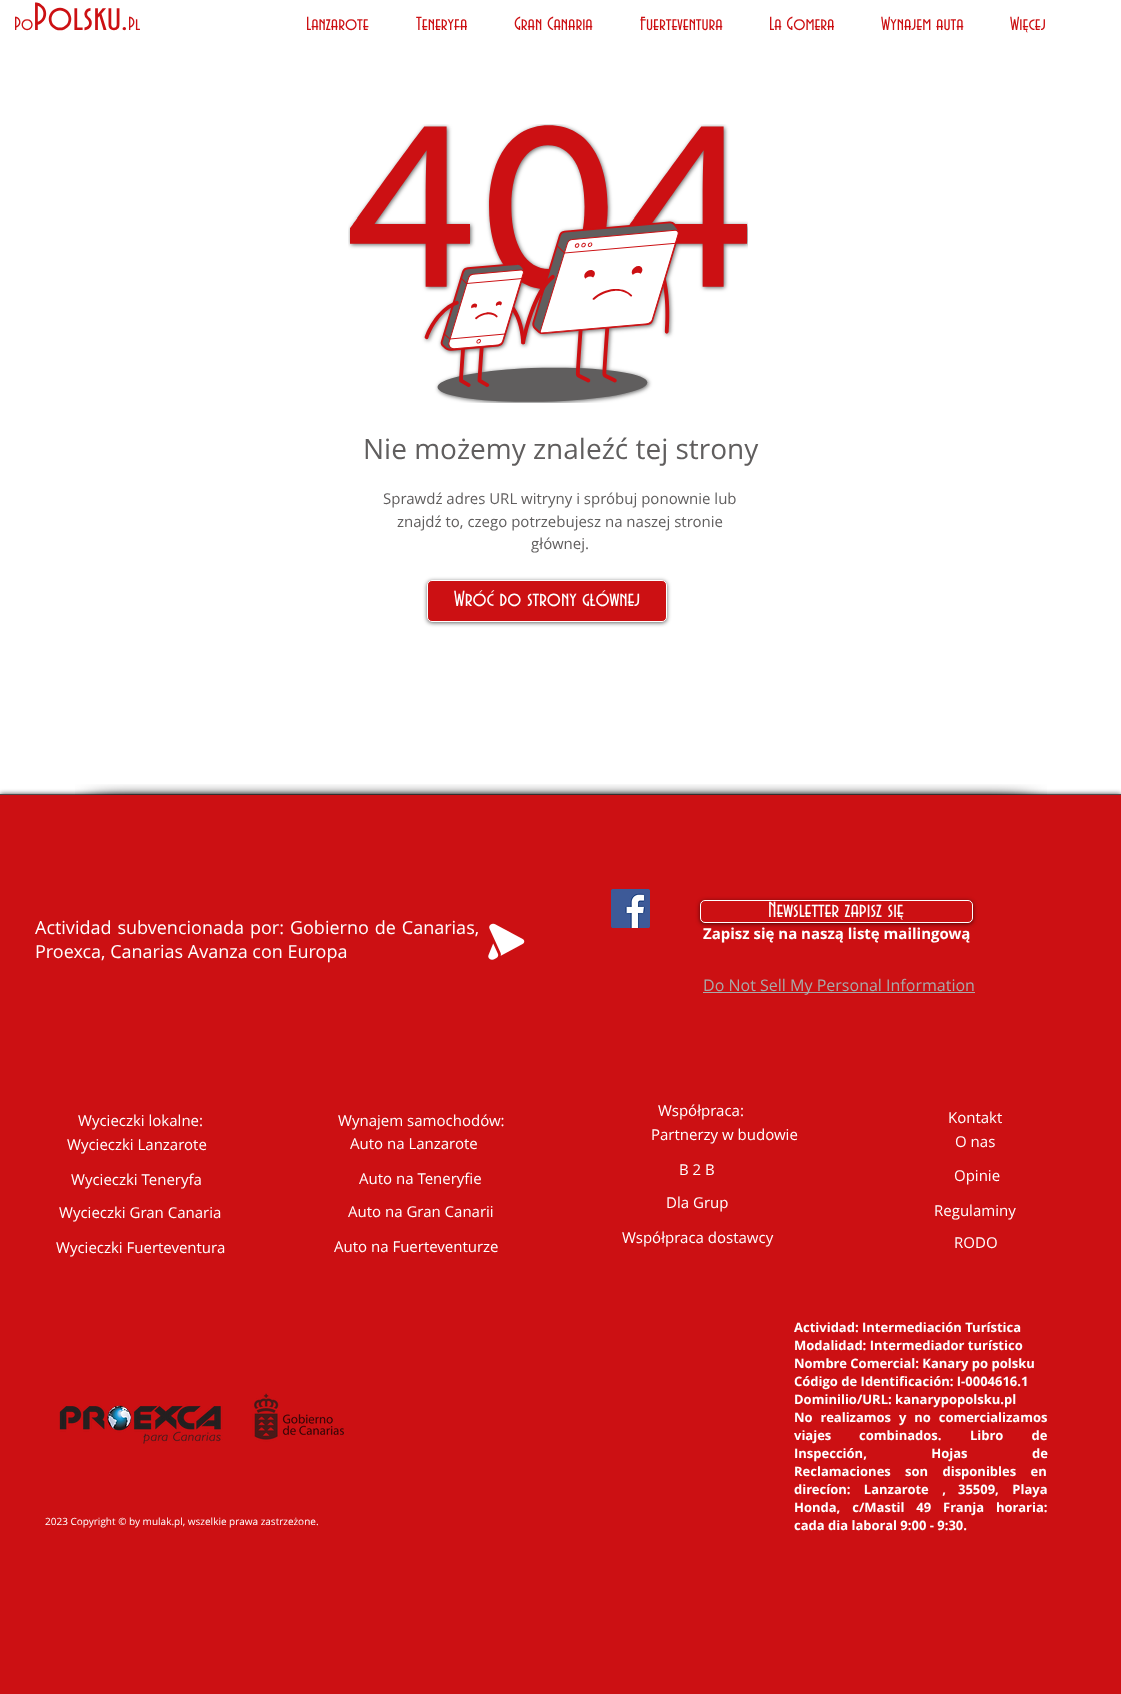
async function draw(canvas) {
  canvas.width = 1121;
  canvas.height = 1694;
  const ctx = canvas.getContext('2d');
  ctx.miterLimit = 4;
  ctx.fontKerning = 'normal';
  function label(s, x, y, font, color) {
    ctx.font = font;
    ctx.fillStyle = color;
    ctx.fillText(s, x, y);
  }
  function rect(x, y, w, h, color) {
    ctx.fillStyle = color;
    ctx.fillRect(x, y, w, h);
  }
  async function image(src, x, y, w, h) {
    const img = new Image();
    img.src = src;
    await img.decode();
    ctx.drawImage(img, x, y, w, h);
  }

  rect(0, 0, 1121, 1694, '#fff');
  label('Po', 14, 30, '20px "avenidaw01"', '#cc1013');
  label('Polsku.', 33, 30, '41px "avenidaw01"', '#cc1013');
  label('Pl', 128, 30, '20px "avenidaw01"', '#cc1013');
  label('Lanzarote', 306, 30, '20px "avenidaw01"', '#cc1013');
  label('Teneryfa', 416, 30, '20px "avenidaw01"', '#cc1013');
  label('Gran Canaria', 514, 30, '20px "avenidaw01"', '#cc1013');
  label('Fuerteventura', 640, 30, '20px "avenidaw01"', '#cc1013');
  label('La Gomera', 769, 30, '20px "avenidaw01"', '#cc1013');
  label('Wynajem auta', 881, 30, '20px "avenidaw01"', '#cc1013');
  label('Więcej', 1010, 30, '20px "avenidaw01"', '#cc1013');
  await image('assets/img1.png', 348, 124, 400, 279);
  label('Nie możemy znaleźć tej strony', 363, 459, '28px Open Sans', '#605e5e');
  label('Sprawdź adres URL witryny i spróbuj ponownie lub', 383, 504, '15px "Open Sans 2"', '#605e5e');
  label('znajdź to, czego potrzebujesz na naszej stronie', 397, 527, '15px "Open Sans 2"', '#605e5e');
  label('głównej.', 531, 549, '15px "Open Sans 2"', '#605e5e');
  ctx.fillStyle = '#00000099';
  ctx.filter = 'blur(2px)';
  ctx.beginPath();
  ctx.roundRect(427, 581, 240, 42, 5);
  ctx.fill();
  ctx.filter = 'none';
  ctx.fillStyle = '#cc1013';
  ctx.beginPath();
  ctx.roundRect(427.5, 580.5, 239, 41, 4.5);
  ctx.fill();
  ctx.strokeStyle = '#fff';
  ctx.stroke();
  label('Wróć do strony głównej', 454, 606, '23px "avenidaw01"', '#fff');
  ctx.fillStyle = '#000000b3';
  ctx.filter = 'blur(2.5px)';
  ctx.beginPath();
  ctx.rect(0, 794, 1121, 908);
  ctx.fill();
  ctx.filter = 'none';
  rect(0, 795, 1121, 899, '#cc1013');
  rect(0, 794, 1121, 1, '#4d4b4b');
  await image('assets/img2.png', 75, 784, 96, 11);
  await image('assets/img3.png', 171, 784, 780, 11);
  await image('assets/img4.png', 951, 784, 96, 11);
  ctx.wordSpacing = '1.25px';
  label('Actividad subvencionada por: Gobierno de Canarias,', 35, 934, '18px "Open Sans 2"', '#fff');
  ctx.wordSpacing = '0px';
  label('Proexca, Canarias Avanza con Europa', 35, 958, '18px "Open Sans 2"', '#fff');
  await image('assets/img5.png', 488, 923, 37, 37);
  await image('assets/img6.png', 611, 889, 39, 39);
  ctx.fillStyle = '#00000099';
  ctx.filter = 'blur(2px)';
  ctx.beginPath();
  ctx.roundRect(700, 901, 273, 23, 5);
  ctx.fill();
  ctx.filter = 'none';
  ctx.fillStyle = '#cc1013';
  ctx.beginPath();
  ctx.roundRect(700.5, 900.5, 272, 22, 4.5);
  ctx.fill();
  ctx.stroke();
  label('Newsletter zapisz się', 768, 917, '23px "avenidaw01"', '#fff');
  label('Zapisz się na naszą listę mailingową', 703, 939, 'bold 15px Open Sans', '#fff');
  rect(703, 992, 272, 1, '#a9a9a9');
  label('Do Not Sell My Personal Information', 703, 991, '16px "Open Sans 2"', '#a9a9a9');
  label('Wycieczki lokalne:', 78, 1126, '15px "Open Sans 2"', '#fff');
  label('Wycieczki Lanzarote', 67, 1150, '15px "Open Sans 2"', '#fff');
  label('Wycieczki Teneryfa', 71, 1185, '15px "Open Sans 2"', '#fff');
  label('Wycieczki Gran Canaria', 59, 1218, '15px "Open Sans 2"', '#fff');
  label('Wycieczki Fuerteventura', 56, 1253, '15px "Open Sans 2"', '#fff');
  label('Wynajem samochodów:', 338, 1126, '15px "Open Sans 2"', '#fff');
  label('Auto na Lanzarote', 350, 1149, '15px "Open Sans 2"', '#fff');
  label('Auto na Teneryfie', 359, 1184, '15px "Open Sans 2"', '#fff');
  label('Auto na Gran Canarii', 348, 1217, '15px "Open Sans 2"', '#fff');
  label('Auto na Fuerteventurze', 334, 1252, '15px "Open Sans 2"', '#fff');
  label('Współpraca:', 658, 1116, '15px "Open Sans 2"', '#fff');
  label('Partnerzy w budowie', 651, 1140, '15px "Open Sans 2"', '#fff');
  label('B 2 B', 679, 1175, '15px "Open Sans 2"', '#fff');
  label('Dla Grup', 666, 1208, '15px "Open Sans 2"', '#fff');
  label('Współpraca dostawcy', 622, 1243, '15px "Open Sans 2"', '#fff');
  label('Kontakt', 948, 1123, '15px "Open Sans 2"', '#fff');
  label('O nas', 955, 1147, '15px "Open Sans 2"', '#fff');
  label('Opinie', 954, 1181, '15px "Open Sans 2"', '#fff');
  label('Regulaminy', 934, 1216, '15px "Open Sans 2"', '#fff');
  label('RODO', 954, 1248, '15px "Open Sans 2"', '#fff');
  await image('assets/img7.png', 59, 1393, 285, 51);
  label('2023 Copyright © by mulak.pl, wszelkie prawa zastrzeżone.', 45, 1525, '10px "Open Sans 2"', '#fff');
  label('Actividad: Intermediación Turística', 794, 1332, 'bold 13px Open Sans', '#fff');
  label('Modalidad: Intermediador turístico', 794, 1350, 'bold 13px Open Sans', '#fff');
  label('Nombre Comercial: Kanary po polsku', 794, 1368, 'bold 13px Open Sans', '#fff');
  label('Código de Identificación: I-0004616.1', 794, 1386, 'bold 13px Open Sans', '#fff');
  label('Dominilio/URL: kanarypopolsku.pl', 794, 1404, 'bold 13px Open Sans', '#fff');
  ctx.wordSpacing = '4.5px';
  label('No realizamos y no comercializamos', 794, 1422, 'bold 13px Open Sans', '#fff');
  ctx.wordSpacing = '0px';
  label('viajes', 794, 1440, 'bold 13px Open Sans', '#fff');
  label('combinados.', 859, 1440, 'bold 13px Open Sans', '#fff');
  ctx.wordSpacing = '25px';
  label('Libro de', 970, 1440, 'bold 13px Open Sans', '#fff');
  ctx.wordSpacing = '61px';
  label('Inspección, Hojas de', 794, 1458, 'bold 13px Open Sans', '#fff');
  ctx.wordSpacing = '0px';
  label('Reclamaciones', 794, 1476, 'bold 13px Open Sans', '#fff');
  ctx.wordSpacing = '11px';
  label('son disponibles en', 905, 1476, 'bold 13px Open Sans', '#fff');
  ctx.wordSpacing = '10px';
  label('direcíon: Lanzarote ,', 794, 1494, 'bold 13px Open Sans', '#fff');
  label('35509, Playa', 958, 1494, 'bold 13px Open Sans', '#fff');
  ctx.wordSpacing = '8.5px';
  label('Honda, c/Mastil 49 Franja horaria:', 794, 1512, 'bold 13px Open Sans', '#fff');
  ctx.wordSpacing = '0px';
  label('cada dia laboral 9:00 - 9:30.', 794, 1530, 'bold 13px Open Sans', '#fff');
}

draw(document.querySelector('canvas'));
